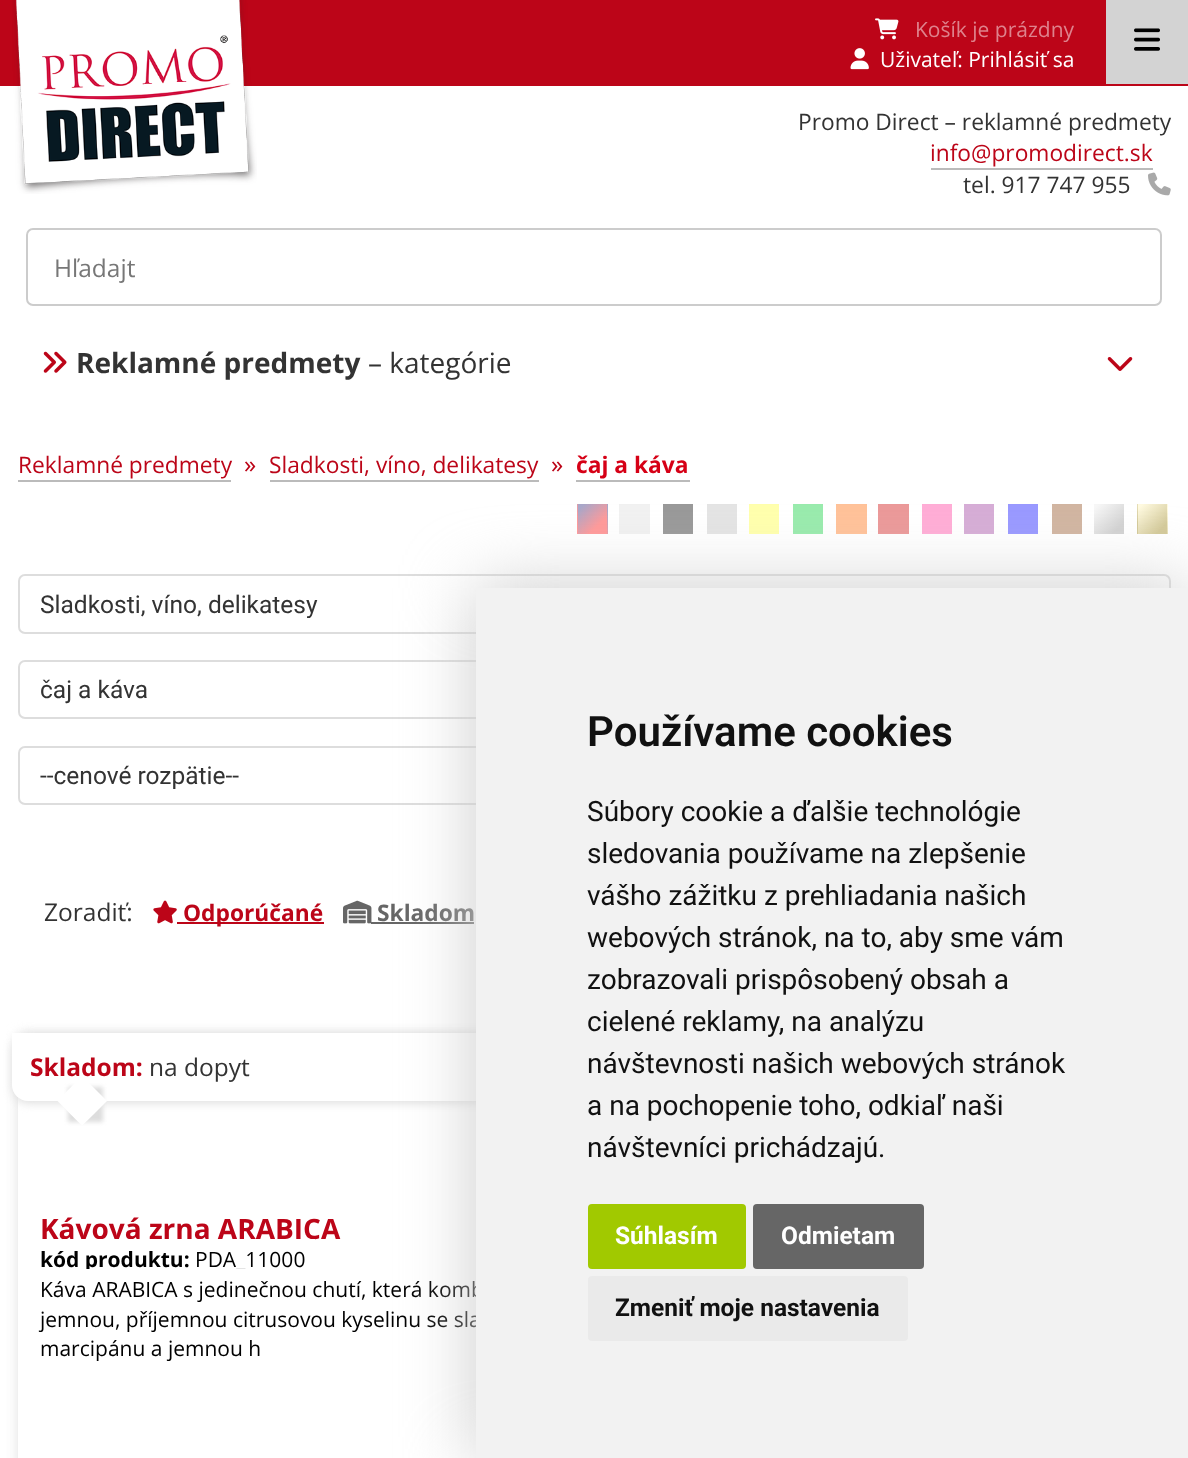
async function draw(canvas) {
  canvas.width = 1188;
  canvas.height = 1458;
  const ctx = canvas.getContext('2d');
  ctx.miterLimit = 4;
  ctx.fontKerning = 'normal';
  function label(s, x, y, font, color) {
    ctx.font = font;
    ctx.fillStyle = color;
    ctx.fillText(s, x, y);
  }
  function rect(x, y, w, h, color) {
    ctx.fillStyle = color;
    ctx.fillRect(x, y, w, h);
  }
  function roundedRect(x, y, w, h, r, color) {
    ctx.fillStyle = color;
    ctx.beginPath();
    ctx.roundRect(x, y, w, h, r);
    ctx.fill();
  }
  async function image(src, x, y, w, h) {
    const img = new Image();
    img.src = src;
    await img.decode();
    ctx.drawImage(img, x, y, w, h);
  }
  let gradient, path;

  rect(0, 0, 1188, 1458, '#fff');
  rect(0, 0, 1188, 86, '#bc0518');
  rect(1106, 0, 82, 84, '#d3d3d3');
  await image('assets/img1.png', 1134, 28, 26, 23);
  await image('assets/img2.png', 12, 0, 245, 194);
  await image('assets/img3.png', 875, 18, 24, 22);
  label('Košík je prázdny', 915, 37, '21px Open Sans', '#de828c');
  await image('assets/img4.png', 850, 48, 19, 22);
  label('Uživateľ: Prihlásiť sa', 880, 67, '21px Open Sans', '#fff');
  label('Promo Direct – reklamné predmety', 798, 130, '22.75px Open Sans', '#333');
  label('info@promodirect.sk', 930, 161, '22.75px Open Sans', '#bc0518');
  rect(931, 168, 222, 2, '#bbb');
  label('tel. 917 747 955', 963, 193, '22.75px Open Sans', '#333');
  await image('assets/img5.png', 1148, 172, 23, 24);
  await image('assets/img6.png', 43, 351, 24, 22);
  label('Reklamné predmety', 76, 373, 'bold 28px Open Sans', '#333');
  label('– kategórie', 368, 373, '28px Open Sans', '#333');
  await image('assets/img7.png', 1107, 357, 26, 14);
  ctx.beginPath();
  ctx.roundRect(27, 229, 1134, 76, 6);
  ctx.strokeStyle = '#ccc';
  ctx.lineWidth = 2;
  ctx.stroke();
  label('Hľadajt', 54, 277, '24.5px Open Sans', '#777');
  label('Reklamné predmety', 18, 473, '22.75px Open Sans', '#bc0518');
  rect(18, 480, 213, 2, '#bbb');
  label('»', 244, 473, '24.5px Open Sans', '#bc0518');
  label('Sladkosti, víno, delikatesy', 269, 473, '22.75px Open Sans', '#bc0518');
  rect(270, 480, 269, 2, '#bbb');
  label('»', 551, 473, '24.5px Open Sans', '#bc0518');
  label('čaj a káva', 576, 473, 'bold 22.75px Open Sans', '#d60016');
  rect(576, 480, 114, 2, '#bbb');
  gradient = ctx.createLinearGradient(548, 503, 577, 534);
  gradient.addColorStop(0.12, '#a9a7c9');
  gradient.addColorStop(0.71, '#f99');
  ctx.fillStyle = gradient;
  ctx.fillRect(577, 504, 1, 30);
  gradient = ctx.createLinearGradient(578, 503, 607, 534);
  gradient.addColorStop(0.12, '#a9a7c9');
  gradient.addColorStop(0.71, '#f99');
  ctx.fillStyle = gradient;
  ctx.fillRect(578, 504, 29, 30);
  gradient = ctx.createLinearGradient(608, 503, 636, 534);
  gradient.addColorStop(0.12, '#a9a7c9');
  gradient.addColorStop(0.71, '#f99');
  ctx.fillStyle = gradient;
  ctx.fillRect(607, 504, 1, 30);
  rect(619, 504, 31, 30, '#f1f1f1');
  rect(663, 504, 30, 30, '#999');
  rect(707, 504, 30, 30, '#e4e4e4');
  rect(749, 504, 30, 30, '#ffffad');
  rect(793, 504, 30, 30, '#99ebad');
  rect(836, 504, 31, 30, '#ffc299');
  rect(878, 504, 31, 30, '#eb9999');
  rect(922, 504, 30, 30, '#ffadd6');
  rect(964, 504, 30, 30, '#d6add6');
  rect(1008, 504, 30, 30, '#99f');
  rect(1052, 504, 30, 30, '#d1b5a1');
  gradient = ctx.createLinearGradient(1094, 503, 1123, 534);
  gradient.addColorStop(0.09, '#f7f7f7');
  gradient.addColorStop(0.82, '#d2d2d2');
  ctx.fillStyle = gradient;
  ctx.fillRect(1094, 504, 30, 30);
  gradient = ctx.createLinearGradient(1108, 503, 1137, 534);
  gradient.addColorStop(0.09, '#fffae0');
  gradient.addColorStop(0.82, '#d3c999');
  ctx.fillStyle = gradient;
  ctx.fillRect(1137, 504, 1, 30);
  gradient = ctx.createLinearGradient(1138, 503, 1167, 534);
  gradient.addColorStop(0.09, '#fffae0');
  gradient.addColorStop(0.82, '#d3c999');
  ctx.fillStyle = gradient;
  ctx.fillRect(1138, 504, 29, 30);
  gradient = ctx.createLinearGradient(1168, 503, 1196, 534);
  gradient.addColorStop(0.09, '#fffae0');
  gradient.addColorStop(0.82, '#d3c999');
  ctx.fillStyle = gradient;
  ctx.fillRect(1167, 504, 1, 30);
  ctx.beginPath();
  ctx.roundRect(19, 575, 1151, 58, 6);
  ctx.strokeStyle = '#ddd';
  ctx.stroke();
  ctx.save();
  ctx.beginPath();
  ctx.rect(40, 590, 1068, 28);
  ctx.clip();
  label('Sladkosti, víno, delikatesy', 40, 613, '24.5px Roboto', '#333');
  ctx.restore();
  ctx.beginPath();
  ctx.roundRect(19, 661, 1151, 57, 6);
  ctx.stroke();
  label('čaj a káva', 40, 698, '24.5px Roboto', '#333');
  ctx.beginPath();
  ctx.roundRect(19, 747, 1151, 57, 6);
  ctx.stroke();
  label('--cenové rozpätie--', 40, 784, '24.5px Roboto', '#333');
  label('Zoradiť:', 44, 921, '24.5px Open Sans', '#333');
  await image('assets/img8.png', 153, 900, 24, 24);
  rect(177, 922, 147, 2, '#bc0518');
  label('Odporúčané', 183, 921, 'bold 22.75px Open Sans', '#bc0518');
  await image('assets/img9.png', 343, 900, 29, 24);
  label('Skladom', 377, 921, 'bold 22.75px Open Sans', '#666');
  rect(371, 922, 103, 2, '#666');
  ctx.fillStyle = '#ddd';
  ctx.filter = 'blur(7px)';
  ctx.beginPath();
  ctx.rect(19, 1036, 1120, 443);
  ctx.fill();
  ctx.filter = 'none';
  rect(18, 1097, 458, 361, '#fff');
  ctx.fillStyle = '#ddd';
  ctx.filter = 'blur(5px)';
  ctx.beginPath();
  ctx.roundRect(12, 1034, 648, 69, 16);
  ctx.fill();
  ctx.filter = 'none';
  ctx.fillStyle = '#fff';
  ctx.beginPath();
  ctx.roundRect(12, 1033, 648, 68, [0, 0, 16, 16]);
  ctx.fill();
  label('Skladom:', 30, 1076, 'bold 24.5px Open Sans', '#bc0518');
  label('na dopyt', 149, 1076, '24.5px Open Sans', '#333');
  ctx.save();
  path = new Path2D('M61 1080H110V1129H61ZM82 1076L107 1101L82 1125.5L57.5 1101Z');
  ctx.clip(path, 'evenodd');
  ctx.fillStyle = '#ddd';
  ctx.filter = 'blur(2px)';
  ctx.beginPath();
  ctx.rect(68, 1087, 35, 35);
  ctx.fill();
  ctx.filter = 'none';
  ctx.restore();
  ctx.fillStyle = '#fff';
  path = new Path2D('M107 1101L82 1125.5V1101Z');
  ctx.fill(path);
  path = new Path2D('M70 1088.5L94.5 1113L82 1125.5L57.5 1101Z');
  ctx.fill(path);
  path = new Path2D('M57.5 1101L82 1076V1101Z');
  ctx.fill(path);
  label('Kávová zrna ARABICA', 40, 1239, 'bold 28px Open Sans', '#bc0518');
  label('kód produktu:', 40, 1267, 'bold 21px Open Sans', '#000');
  rect(63, 1239, 70, 1, '#fff');
  label('PDA_11000', 195, 1267, '21px Open Sans', '#000');
  rect(198, 1239, 4, 1, '#fff');
  rect(311, 1239, 4, 1, '#fff');
  label('Káva ARABICA s jedinečnou chutí, která komb', 40, 1297, '21px Open Sans', '#000');
  rect(86, 1269, 160, 4, '#fff');
  label('jemnou, příjemnou citrusovou kyselinu se sla', 40, 1327, '21px Open Sans', '#000');
  label('marcipánu a jemnou h', 40, 1356, '21px Open Sans', '#000');
  ctx.fillStyle = '#ccc';
  ctx.filter = 'blur(35px)';
  ctx.beginPath();
  ctx.rect(476, 588, 712, 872);
  ctx.fill();
  ctx.filter = 'none';
  rect(476, 588, 712, 870, '#f2f2f2');
  label('Používame cookies', 587, 746, '600 42px Roboto', '#111');
  label('Súbory cookie a ďalšie technológie', 587, 821, '28px Roboto', '#111');
  label('sledovania používame na zlepšenie', 587, 863, '28px Roboto', '#111');
  label('vášho zážitku z prehliadania našich', 587, 905, '28px Roboto', '#111');
  label('webových stránok, na to, aby sme vám', 587, 947, '28px Roboto', '#111');
  label('zobrazovali prispôsobený obsah a', 587, 989, '28px Roboto', '#111');
  label('cielené reklamy, na analýzu', 587, 1031, '28px Roboto', '#111');
  label('návštevnosti našich webových stránok', 587, 1073, '28px Roboto', '#111');
  label('a na pochopenie toho, odkiaľ naši', 587, 1115, '28px Roboto', '#111');
  label('návštevníci prichádzajú.', 587, 1157, '28px Roboto', '#111');
  roundedRect(588, 1204, 158, 65, 4, '#a1c900');
  label('Súhlasím', 615, 1244, 'bold 24.5px Roboto', '#fff');
  roundedRect(753, 1204, 171, 65, 4, '#666');
  label('Odmietam', 781, 1244, 'bold 24.5px Roboto', '#fff');
  roundedRect(588, 1276, 320, 65, 4, '#eaeaea');
  label('Zmeniť moje nastavenia', 615, 1316, 'bold 24.5px Roboto', '#111');
}

draw(document.querySelector('canvas'));
